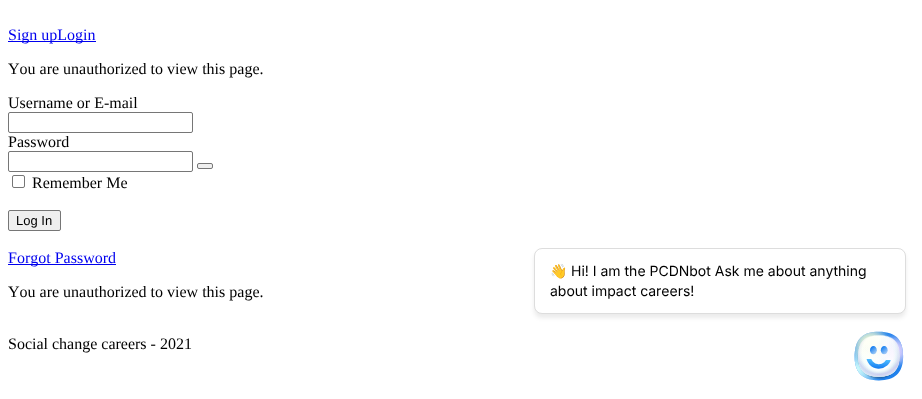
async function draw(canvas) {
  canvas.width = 922;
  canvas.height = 399;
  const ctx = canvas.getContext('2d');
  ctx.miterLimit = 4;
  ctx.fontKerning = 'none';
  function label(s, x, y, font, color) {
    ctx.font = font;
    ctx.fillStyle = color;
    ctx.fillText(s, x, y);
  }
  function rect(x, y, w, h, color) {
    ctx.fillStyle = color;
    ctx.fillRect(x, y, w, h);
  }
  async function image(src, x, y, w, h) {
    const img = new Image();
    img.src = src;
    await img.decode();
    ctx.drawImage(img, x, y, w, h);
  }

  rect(0, 0, 922, 399, '#fff');
  rect(8, 41, 88, 1, '#00e');
  label('Sign upLogin', 8, 40, '16px Liberation Serif', '#00e');
  label('You are unauthorized to view this page.', 8, 74, '16px Liberation Serif', '#000');
  label('Username or E-mail', 8, 108, '16px Liberation Serif', '#000');
  ctx.beginPath();
  ctx.roundRect(8.5, 112.5, 184, 20, 1.5);
  ctx.strokeStyle = '#767676';
  ctx.stroke();
  label('Password', 8, 147, '16px Liberation Serif', '#000');
  ctx.beginPath();
  ctx.roundRect(8.5, 151.5, 184, 20, 1.5);
  ctx.stroke();
  ctx.fillStyle = '#efefef';
  ctx.beginPath();
  ctx.roundRect(197.5, 163.5, 15, 5, 1.5);
  ctx.fill();
  ctx.stroke();
  ctx.beginPath();
  ctx.roundRect(12.5, 175.5, 12, 12, 1.5);
  ctx.stroke();
  label('Remember Me', 32, 188, '16px Liberation Serif', '#000');
  ctx.fillStyle = '#efefef';
  ctx.beginPath();
  ctx.roundRect(8.5, 210.5, 52, 20, 1.5);
  ctx.fill();
  ctx.stroke();
  label('Log In', 16, 225, '13px Liberation Sans', '#000');
  rect(8, 264, 108, 1, '#00e');
  label('Forgot Password', 8, 263, '16px Liberation Serif', '#00e');
  label('You are unauthorized to view this page.', 8, 297, '16px Liberation Serif', '#000');
  ctx.fillStyle = '#00000014';
  ctx.filter = 'blur(2px)';
  ctx.beginPath();
  ctx.roundRect(534, 252, 372, 66, 8);
  ctx.fill();
  ctx.filter = 'none';
  ctx.fillStyle = '#fff';
  ctx.beginPath();
  ctx.roundRect(534.5, 248.5, 371, 65, 7.5);
  ctx.fill();
  ctx.strokeStyle = '#ddd';
  ctx.stroke();
  label('👋', 550, 276, '14px Noto Color Emoji', '#000');
  label('Hi! I am the PCDNbot Ask me about anything', 571, 276, '14px Inter', '#000');
  label('about impact careers!', 550, 296, '14px Inter', '#000');
  await image('assets/img1.png', 854, 331, 50, 50);
  label('Social change careers - 2021', 8, 349, '16px Liberation Serif', '#000');
}

draw(document.querySelector('canvas'));
